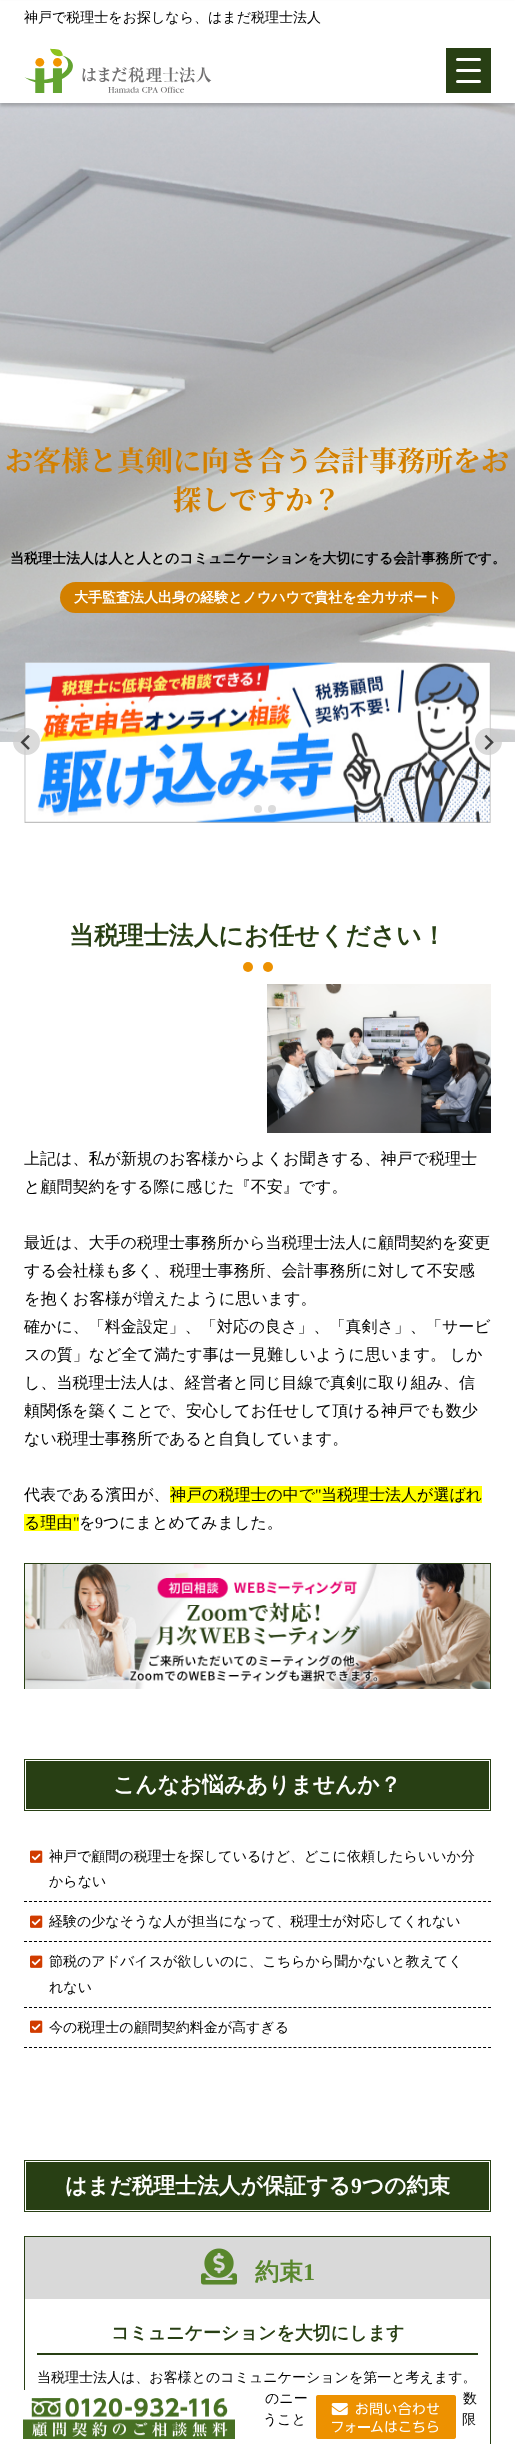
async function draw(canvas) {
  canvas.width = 515;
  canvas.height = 2444;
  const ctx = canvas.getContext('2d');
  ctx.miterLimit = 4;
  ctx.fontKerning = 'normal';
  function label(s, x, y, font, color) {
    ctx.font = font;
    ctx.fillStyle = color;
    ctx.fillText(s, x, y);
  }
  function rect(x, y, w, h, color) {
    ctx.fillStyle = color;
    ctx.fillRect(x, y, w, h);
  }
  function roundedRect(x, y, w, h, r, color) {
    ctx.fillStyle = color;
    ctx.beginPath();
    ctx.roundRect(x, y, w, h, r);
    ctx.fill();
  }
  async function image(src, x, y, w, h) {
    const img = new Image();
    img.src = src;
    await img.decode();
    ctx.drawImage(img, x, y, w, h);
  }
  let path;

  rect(0, 0, 515, 2444, '#fff');
  await image('assets/img2.png', 0, 103, 515, 639);
  ctx.fillStyle = '#00000033';
  ctx.filter = 'blur(1.5px)';
  ctx.beginPath();
  ctx.rect(0, 3, 515, 103);
  ctx.fill();
  ctx.filter = 'none';
  rect(0, 1, 515, 102, '#fff');
  label('神戸で税理士をお探しなら、はまだ税理士法人', 24, 22, '500 14px WenQuanYi Zen Hei', '#000');
  await image('assets/img1.png', 24, 48, 188, 45);
  rect(446, 48, 45, 45, '#283f14');
  roundedRect(456, 58, 25, 3, 1.5, '#fff');
  roundedRect(456, 69, 25, 3, 1.5, '#fff');
  roundedRect(456, 80, 25, 3, 1.5, '#fff');
  label('お客様と真剣に向き合う会計事務所をお', 5, 471, '200 28px Noto Serif JP', '#d38000');
  label('探しですか？', 173, 510, '200 28px Noto Serif JP', '#d38000');
  label('当税理士法人は人と人とのコミュニケーションを大切にする会計事務所です。', 10, 563, 'bold 14px WenQuanYi Zen Hei', '#000');
  roundedRect(60, 582, 395, 31, 15.5, '#d38000');
  label('大手監査法人出身の経験とノウハウで貴社を全力サポート', 74, 602, 'bold 14px WenQuanYi Zen Hei', '#fff');
  await image('assets/img3.png', 24, 662, 467, 161);
  ctx.fillStyle = '#ccccccb3';
  ctx.beginPath();
  ctx.arc(26.5, 741.5, 13.5, 0, 2 * Math.PI);
  ctx.fill();
  await image('assets/img4.png', 20, 734, 10, 16);
  ctx.beginPath();
  ctx.arc(488.5, 741.5, 13.5, 0, 2 * Math.PI);
  ctx.fill();
  await image('assets/img5.png', 484, 734, 10, 16);
  ctx.fillStyle = '#dbdbdb';
  ctx.beginPath();
  ctx.arc(258, 809, 4, 0, 2 * Math.PI);
  ctx.fill();
  ctx.beginPath();
  ctx.arc(272, 809, 4, 0, 2 * Math.PI);
  ctx.fill();
  label('当税理士法人にお任せください！', 69, 944, 'bold 24.9px WenQuanYi Zen Hei', '#283f14');
  ctx.fillStyle = '#ed9100';
  ctx.beginPath();
  ctx.arc(248, 967, 5, 0, 2 * Math.PI);
  ctx.fill();
  ctx.beginPath();
  ctx.arc(268, 967, 5, 0, 2 * Math.PI);
  ctx.fill();
  await image('assets/img6.png', 267, 984, 224, 149);
  label('上記は、私が新規のお客様からよくお聞きする、神戸で税理士', 24, 1164, '500 16px WenQuanYi Zen Hei', '#000');
  label('と顧問契約をする際に感じた『不安』です。', 24, 1192, '500 16px WenQuanYi Zen Hei', '#000');
  label('最近は、大手の税理士事務所から当税理士法人に顧問契約を変更', 24, 1248, '500 16px WenQuanYi Zen Hei', '#000');
  label('する会社様も多く、税理士事務所、会計事務所に対して不安感', 24, 1276, '500 16px WenQuanYi Zen Hei', '#000');
  label('を抱くお客様が増えたように思います。', 24, 1304, '500 16px WenQuanYi Zen Hei', '#000');
  label('確かに、「料金設定」、「対応の良さ」、「真剣さ」、「サービ', 24, 1332, '500 16px WenQuanYi Zen Hei', '#000');
  ctx.wordSpacing = '-1px';
  label('スの質」など全て満たす事は一見難しいように思います。 しか', 24, 1360, '500 16px WenQuanYi Zen Hei', '#000');
  ctx.wordSpacing = '0px';
  label('し、当税理士法人は、経営者と同じ目線で真剣に取り組み、信', 24, 1388, '500 16px WenQuanYi Zen Hei', '#000');
  label('頼関係を築くことで、安心してお任せして頂ける神戸でも数少', 24, 1416, '500 16px WenQuanYi Zen Hei', '#000');
  label('ない税理士事務所であると自負しています。', 24, 1444, '500 16px WenQuanYi Zen Hei', '#000');
  label('代表である濱田が、', 24, 1500, '500 16px WenQuanYi Zen Hei', '#000');
  rect(170, 1486, 312, 17, '#ff0');
  label('神戸の税理士の中で', 170, 1500, '500 16px WenQuanYi Zen Hei', '#000');
  label('"', 315, 1500, '16px Liberation Serif', '#000');
  label('当税理士法人が選ばれ', 321, 1500, '500 16px WenQuanYi Zen Hei', '#000');
  rect(24, 1514, 55, 17, '#ff0');
  label('る理由', 24, 1528, '500 16px WenQuanYi Zen Hei', '#000');
  label('"', 73, 1528, '16px Liberation Serif', '#000');
  label('を', 79, 1528, '500 16px WenQuanYi Zen Hei', '#000');
  label('9', 95, 1528, '16px Liberation Serif', '#000');
  label('つにまとめてみました。', 103, 1528, '500 16px WenQuanYi Zen Hei', '#000');
  await image('assets/img7.png', 24, 1563, 467, 126);
  rect(24, 1759, 467, 52, '#283f14');
  ctx.strokeStyle = '#fff';
  ctx.strokeRect(25.5, 1760.5, 464, 49);
  label('こんなお悩みありませんか？', 113, 1792, 'bold 21.75px WenQuanYi Zen Hei', '#fff');
  path = new Path2D('M24 1901.5H491');
  ctx.strokeStyle = '#000';
  ctx.setLineDash([3, 1.99]);
  ctx.stroke(path);
  await image('assets/img8.png', 30, 1850, 13, 13);
  label('神戸で顧問の税理士を探しているけど、どこに依頼したらいいか分', 49, 1861, '500 14px WenQuanYi Zen Hei', '#000');
  label('からない', 49, 1886, '500 14px WenQuanYi Zen Hei', '#000');
  path = new Path2D('M24 1941.5H491');
  ctx.stroke(path);
  await image('assets/img8.png', 30, 1915, 13, 13);
  label('経験の少なそうな人が担当になって、税理士が対応してくれない', 49, 1926, '500 14px WenQuanYi Zen Hei', '#000');
  path = new Path2D('M24 2007.5H491');
  ctx.stroke(path);
  await image('assets/img8.png', 30, 1955, 13, 13);
  label('節税のアドバイスが欲しいのに、こちらから聞かないと教えてく', 49, 1966, '500 14px WenQuanYi Zen Hei', '#000');
  label('れない', 49, 1992, '500 14px WenQuanYi Zen Hei', '#000');
  path = new Path2D('M24 2047.5H491');
  ctx.stroke(path);
  await image('assets/img8.png', 30, 2020, 13, 13);
  label('今の税理士の顧問契約料金が高すぎる', 49, 2032, '500 14px WenQuanYi Zen Hei', '#000');
  rect(24, 2160, 467, 52, '#283f14');
  ctx.strokeStyle = '#fff';
  ctx.setLineDash([]);
  ctx.strokeRect(25.5, 2161.5, 464, 49);
  label('はまだ税理士法人が保証する', 65, 2193, 'bold 21.75px WenQuanYi Zen Hei', '#fff');
  label('9', 351, 2193, 'bold 21.75px Liberation Serif', '#fff');
  label('つの約束', 362, 2193, 'bold 21.75px WenQuanYi Zen Hei', '#fff');
  ctx.strokeStyle = '#283f14';
  ctx.strokeRect(24.5, 2236.5, 466, 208);
  rect(25, 2237, 465, 62, '#d9d9d9');
  await image('assets/img9.png', 201, 2248, 36, 37);
  label('約束', 255, 2280, 'bold 24px WenQuanYi Zen Hei', '#59872c');
  label('1', 303, 2280, 'bold 24px Liberation Serif', '#59872c');
  rect(37, 2353, 441, 2, '#283f14');
  label('コミュニケーションを大切にします', 111, 2339, 'bold 18px WenQuanYi Zen Hei', '#283f14');
  label('当税理士法人は、お客様とのコミュニケーションを第一と考えます。', 37, 2382, '500 14px WenQuanYi Zen Hei', '#000');
  label('のニー', 265, 2403, '500 14px WenQuanYi Zen Hei', '#000');
  label('数', 463, 2403, '500 14px WenQuanYi Zen Hei', '#000');
  label('うこと', 263, 2424, '500 14px WenQuanYi Zen Hei', '#000');
  label('限', 462, 2424, '500 14px WenQuanYi Zen Hei', '#000');
  rect(24, 2390, 1, 54, '#fff');
  await image('assets/img10.png', 23, 2398, 212, 41);
  await image('assets/img11.png', 316, 2395, 140, 44);
}

draw(document.querySelector('canvas'));
